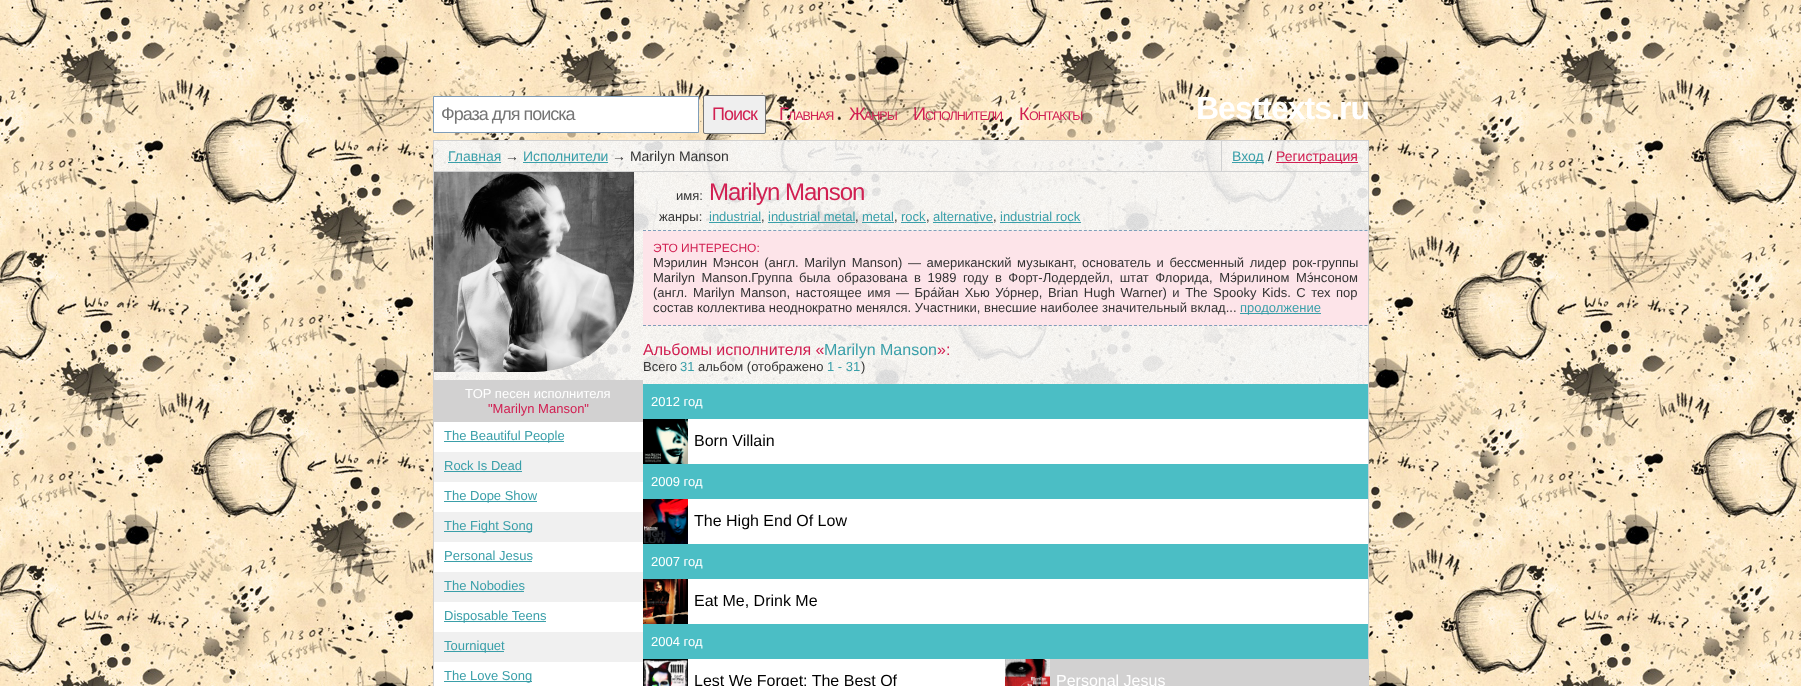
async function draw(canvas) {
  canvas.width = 1801;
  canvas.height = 686;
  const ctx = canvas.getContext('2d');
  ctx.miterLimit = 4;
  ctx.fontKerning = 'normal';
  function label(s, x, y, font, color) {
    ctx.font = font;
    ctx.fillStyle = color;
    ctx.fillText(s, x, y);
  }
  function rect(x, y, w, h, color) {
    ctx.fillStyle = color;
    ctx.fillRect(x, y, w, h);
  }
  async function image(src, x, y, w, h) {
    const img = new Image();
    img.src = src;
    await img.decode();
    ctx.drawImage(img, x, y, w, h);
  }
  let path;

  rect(0, 0, 1801, 686, '#fff');
  await image('assets/img1.png', 0, 0, 1801, 686);
  ctx.beginPath();
  ctx.rect(433.5, 96.5, 265, 36);
  ctx.fill();
  ctx.strokeStyle = '#7f9db9';
  ctx.stroke();
  ctx.letterSpacing = '-1px';
  label('Фраза для поиска', 441, 120, '18px Liberation Sans', '#757575');
  ctx.fillStyle = '#efefef';
  ctx.beginPath();
  ctx.roundRect(703.5, 95.5, 62, 38, 1.5);
  ctx.fill();
  ctx.strokeStyle = '#767676';
  ctx.stroke();
  label('Поиск', 712, 120, '18px Liberation Sans', '#d12052');
  label('Г', 779, 120, '18px Liberation Sans', '#d12052');
  label('ЛАВНАЯ', 788, 120, '12.5px Liberation Sans', '#d12052');
  label('Ж', 849, 120, '18px Liberation Sans', '#d12052');
  label('АНРЫ', 864, 120, '12.5px Liberation Sans', '#d12052');
  label('И', 913, 120, '18px Liberation Sans', '#d12052');
  label('СПОЛНИТЕЛИ', 925, 120, '12.5px Liberation Sans', '#d12052');
  label('К', 1019, 120, '18px Liberation Sans', '#d12052');
  label('ОНТАКТЫ', 1029, 120, '12.5px Liberation Sans', '#d12052');
  label('Besttexts.ru', 1196, 119, 'bold 32px Liberation Sans', '#fff');
  await image('assets/img2.png', 434, 141, 934, 243);
  ctx.strokeStyle = '#d1d1d1';
  ctx.strokeRect(433.5, 140.5, 935, 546);
  rect(434, 171, 934, 1, '#d1d1d1');
  ctx.letterSpacing = '0px';
  label('Главная', 448, 161, '14px Liberation Sans', '#3a9fa9');
  rect(448, 162, 53, 1, '#3a9fa9');
  label('→', 505, 161, '14px Liberation Sans', '#333');
  label('Исполнители', 523, 161, '14px Liberation Sans', '#3a9fa9');
  rect(523, 162, 85, 1, '#3a9fa9');
  label('→ Marilyn Manson', 612, 161, '14px Liberation Sans', '#333');
  rect(1221, 141, 1, 31, '#d1d1d1');
  rect(1232, 162, 32, 1, '#3a9fa9');
  label('Вход', 1232, 161, '14px Liberation Sans', '#3a9fa9');
  label('/', 1268, 161, '14px Liberation Sans', '#333');
  rect(1276, 162, 82, 1, '#d12052');
  label('Регистрация', 1276, 161, '14px Liberation Sans', '#d12052');
  await image('assets/img3.png', 434, 172, 200, 200);
  rect(434, 380, 209, 42, '#d2d1d1');
  label('TOP песен исполнителя', 465, 398, '13px Liberation Sans', '#fff');
  label('"Marilyn Manson"', 488, 413, '13px Liberation Sans', '#d12052');
  rect(434, 422, 209, 264, '#fff');
  rect(444, 441, 120, 1, '#3a9fa9');
  label('The Beautiful People', 444, 440, '13px Liberation Sans', '#3a9fa9');
  rect(434, 452, 209, 30, '#f0f0f0');
  label('Rock Is Dead', 444, 470, '13px Liberation Sans', '#3a9fa9');
  rect(444, 471, 78, 1, '#3a9fa9');
  rect(444, 501, 93, 1, '#3a9fa9');
  label('The Dope Show', 444, 500, '13px Liberation Sans', '#3a9fa9');
  rect(434, 512, 209, 30, '#f0f0f0');
  rect(444, 531, 88, 1, '#3a9fa9');
  label('The Fight Song', 444, 530, '13px Liberation Sans', '#3a9fa9');
  label('Personal Jesus', 444, 560, '13px Liberation Sans', '#3a9fa9');
  rect(444, 561, 88, 1, '#3a9fa9');
  rect(434, 572, 209, 30, '#f0f0f0');
  label('The Nobodies', 444, 590, '13px Liberation Sans', '#3a9fa9');
  rect(444, 591, 80, 1, '#3a9fa9');
  rect(444, 621, 102, 1, '#3a9fa9');
  label('Disposable Teens', 444, 620, '13px Liberation Sans', '#3a9fa9');
  rect(434, 632, 209, 30, '#f0f0f0');
  rect(444, 651, 60, 1, '#3a9fa9');
  label('Tourniquet', 444, 650, '13px Liberation Sans', '#3a9fa9');
  rect(444, 681, 88, 1, '#3a9fa9');
  label('The Love Song', 444, 680, '13px Liberation Sans', '#3a9fa9');
  path = new Path2D('M643 230.5H1368');
  ctx.strokeStyle = '#7f9db9';
  ctx.setLineDash([3, 2.01]);
  ctx.stroke(path);
  label('имя:', 676, 200, '13px Liberation Sans', '#333');
  ctx.letterSpacing = '-1px';
  label('Marilyn Manson', 709, 200, '24px Liberation Sans', '#d12052');
  ctx.letterSpacing = '0px';
  label('жанры:', 659, 221, '13px Liberation Sans', '#333');
  label('industrial', 709, 221, '13px Liberation Sans', '#3a9fa9');
  rect(709, 222, 52, 1, '#3a9fa9');
  label(',', 761, 221, '13px Liberation Sans', '#333');
  label('industrial metal', 768, 221, '13px Liberation Sans', '#3a9fa9');
  rect(768, 222, 87, 1, '#3a9fa9');
  label(',', 855, 221, '13px Liberation Sans', '#333');
  label('metal', 862, 221, '13px Liberation Sans', '#3a9fa9');
  rect(862, 222, 32, 1, '#3a9fa9');
  label(',', 894, 221, '13px Liberation Sans', '#333');
  label('rock', 901, 221, '13px Liberation Sans', '#3a9fa9');
  rect(901, 222, 25, 1, '#3a9fa9');
  label(',', 926, 221, '13px Liberation Sans', '#333');
  label('alternative', 933, 221, '13px Liberation Sans', '#3a9fa9');
  rect(933, 222, 60, 1, '#3a9fa9');
  label(',', 993, 221, '13px Liberation Sans', '#333');
  label('industrial rock', 1000, 221, '13px Liberation Sans', '#3a9fa9');
  rect(1000, 222, 81, 1, '#3a9fa9');
  rect(643, 231, 725, 95, '#fde4e9');
  path = new Path2D('M643 325.5H1368');
  ctx.stroke(path);
  label('ЭТО ИНТЕРЕСНО:', 653, 252, '12px Liberation Sans', '#d12052');
  ctx.wordSpacing = '2px';
  label('Мэрилин Мэнсон (англ. Marilyn Manson) — американский музыкант, основатель и бессменный лидер рок-группы', 653, 267, '13px Liberation Sans', '#333');
  ctx.wordSpacing = '2.9px';
  label('Marilyn Manson.Группа была образована в 1989 году в Форт-Лодердейл, штат Флорида, Мэ́рилином Мэ́нсоном', 653, 282, '13px Liberation Sans', '#333');
  ctx.wordSpacing = '1.9px';
  label('(англ. Marilyn Manson, настоящее имя — Бра́йан Хью Уо́рнер, Brian Hugh Warner) и The Spooky Kids. С тех пор', 653, 297, '13px Liberation Sans', '#333');
  ctx.wordSpacing = '0px';
  label('состав коллектива неоднократно менялся. Участники, внесшие наиболее значительный вклад...', 653, 312, '13px Liberation Sans', '#333');
  rect(1240, 313, 81, 1, '#3a9fa9');
  label('продолжение', 1240, 312, '13px Liberation Sans', '#3a9fa9');
  label('Альбомы исполнителя «', 643, 355, '16px Liberation Sans', '#d12052');
  label('Marilyn Manson', 824, 355, '16px Liberation Sans', '#3a9fa9');
  label('»:', 937, 355, '16px Liberation Sans', '#d12052');
  label('Всего', 643, 371, '13px Liberation Sans', '#333');
  label('31', 680, 371, '13px Liberation Sans', '#3a9fa9');
  label('альбом (отображено', 698, 371, '13px Liberation Sans', '#333');
  label('1 - 31', 827, 371, '13px Liberation Sans', '#3a9fa9');
  label(')', 861, 371, '13px Liberation Sans', '#333');
  rect(688, 419, 680, 267, '#fff');
  rect(643, 384, 725, 35, '#4bbec5');
  label('2012 год', 651, 406, '13px Liberation Sans', '#fff');
  await image('assets/img4.png', 643, 419, 45, 45);
  label('Born Villain', 694, 446, '16px Liberation Sans', '#000');
  rect(643, 464, 725, 35, '#4bbec5');
  label('2009 год', 651, 486, '13px Liberation Sans', '#fff');
  await image('assets/img5.png', 643, 499, 45, 45);
  label('The High End Of Low', 694, 526, '16px Liberation Sans', '#000');
  rect(643, 544, 725, 35, '#4bbec5');
  label('2007 год', 651, 566, '13px Liberation Sans', '#fff');
  await image('assets/img6.png', 643, 579, 45, 45);
  label('Eat Me, Drink Me', 694, 606, '16px Liberation Sans', '#000');
  rect(643, 624, 725, 35, '#4bbec5');
  label('2004 год', 651, 646, '13px Liberation Sans', '#fff');
  await image('assets/img7.png', 643, 659, 45, 27);
  label('Lest We Forget: The Best Of', 694, 686, '16px Liberation Sans', '#000');
  rect(1050, 659, 318, 27, '#d2d1d1');
  await image('assets/img8.png', 1005, 659, 45, 27);
  label('Personal Jesus', 1056, 686, '16px Liberation Sans', '#fff');
}

draw(document.querySelector('canvas'));
